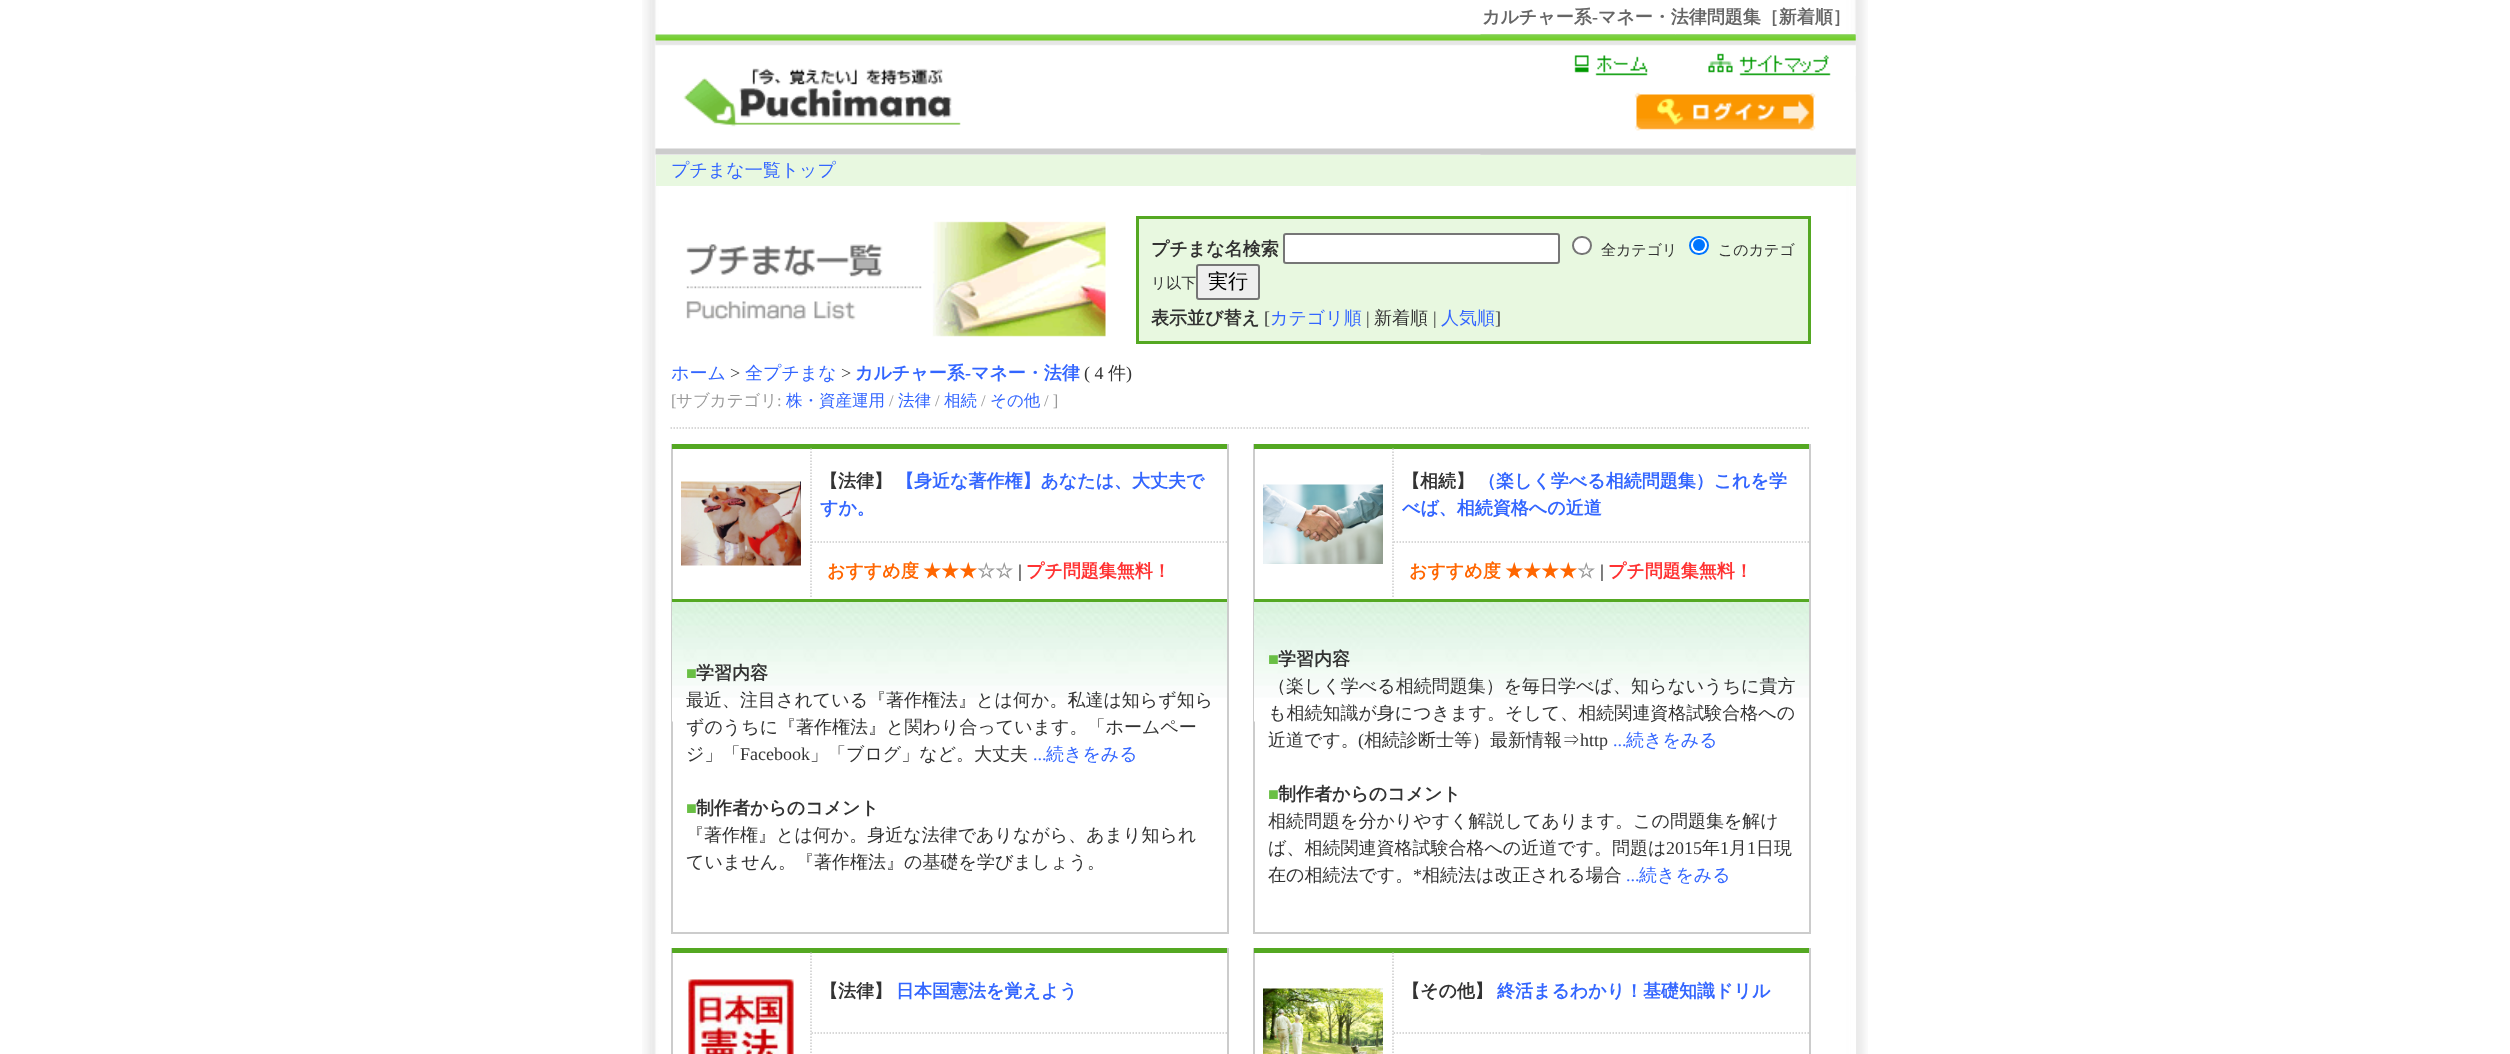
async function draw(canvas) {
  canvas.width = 2510;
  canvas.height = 1054;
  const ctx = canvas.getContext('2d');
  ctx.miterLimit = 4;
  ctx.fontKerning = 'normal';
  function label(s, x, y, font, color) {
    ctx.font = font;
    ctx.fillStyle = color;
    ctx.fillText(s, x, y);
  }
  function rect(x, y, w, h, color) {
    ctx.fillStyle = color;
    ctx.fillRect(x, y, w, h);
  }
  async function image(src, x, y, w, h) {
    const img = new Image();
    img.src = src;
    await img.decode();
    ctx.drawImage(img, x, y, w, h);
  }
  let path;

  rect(0, 0, 2510, 1054, '#fff');
  await image('assets/img1.png', 642, 0, 1226, 1054);
  label('カルチャー系', 1482, 23, 'bold 18px WenQuanYi Zen Hei', '#666');
  label('-', 1592, 23, 'bold 18px Liberation Serif', '#666');
  label('マネー・法律問題集［新着順］', 1598, 23, 'bold 18px WenQuanYi Zen Hei', '#666');
  await image('assets/img2.png', 655, 34, 1201, 121);
  await image('assets/img3.png', 1480, 34, 196, 38);
  await image('assets/img4.png', 1675, 34, 181, 42);
  await image('assets/img5.png', 1480, 92, 376, 63);
  rect(656, 155, 1200, 31, '#e8f8e0');
  label('プチまな一覧トップ', 671, 176, '500 18px WenQuanYi Zen Hei', '#36f');
  rect(1851, 186, 5, 868, '#fff');
  await image('assets/img6.png', 686, 221, 420, 116);
  ctx.fillStyle = '#e8f8e0';
  ctx.beginPath();
  ctx.rect(1137.5, 217.5, 672, 125);
  ctx.fill();
  ctx.strokeStyle = '#54a822';
  ctx.lineWidth = 3;
  ctx.stroke();
  label('プチまな名検索', 1151, 255, 'bold 18px WenQuanYi Zen Hei', '#333');
  ctx.fillStyle = '#fff';
  ctx.beginPath();
  ctx.roundRect(1284, 234, 275, 29, 2);
  ctx.fill();
  ctx.strokeStyle = '#767676';
  ctx.lineWidth = 2;
  ctx.stroke();
  ctx.beginPath();
  ctx.roundRect(1573, 237, 18, 17, 8.5);
  ctx.fill();
  ctx.stroke();
  label('全カテゴリ', 1601, 255, '500 15px WenQuanYi Zen Hei', '#333');
  ctx.fillStyle = '#fff';
  ctx.beginPath();
  ctx.roundRect(1690, 237, 18, 17, 8.5);
  ctx.fill();
  ctx.strokeStyle = '#0075ff';
  ctx.stroke();
  ctx.fillStyle = '#0075ff';
  ctx.beginPath();
  ctx.arc(1699, 245, 6, 0, 2 * Math.PI);
  ctx.fill();
  label('このカテゴ', 1718, 255, '500 15px WenQuanYi Zen Hei', '#333');
  label('リ以下', 1151, 288, '500 15px WenQuanYi Zen Hei', '#333');
  ctx.fillStyle = '#efefef';
  ctx.beginPath();
  ctx.roundRect(1197, 265, 62, 34, 2);
  ctx.fill();
  ctx.strokeStyle = '#767676';
  ctx.stroke();
  label('実行', 1208, 288, '500 20px WenQuanYi Zen Hei', '#000');
  label('表示並び替え', 1151, 324, 'bold 18px WenQuanYi Zen Hei', '#333');
  label('[', 1264, 324, '18px Liberation Serif', '#333');
  label('カテゴリ順', 1270, 324, '500 18px WenQuanYi Zen Hei', '#36f');
  label('|', 1366, 324, '18px Liberation Serif', '#333');
  label('新着順', 1374, 324, '500 18px WenQuanYi Zen Hei', '#333');
  label('|', 1433, 324, '18px Liberation Serif', '#333');
  label('人気順', 1441, 324, '500 18px WenQuanYi Zen Hei', '#36f');
  label(']', 1495, 324, '18px Liberation Serif', '#333');
  label('ホーム', 671, 379, '500 18px WenQuanYi Zen Hei', '#36f');
  label('>', 730, 379, '18px Liberation Serif', '#333');
  label('全プチまな', 745, 379, '500 18px WenQuanYi Zen Hei', '#36f');
  label('>', 841, 379, '18px Liberation Serif', '#333');
  label('カルチャー系', 855, 379, 'bold 18px WenQuanYi Zen Hei', '#36f');
  label('-', 965, 379, 'bold 18px Liberation Serif', '#36f');
  label('マネー・法律', 971, 379, 'bold 18px WenQuanYi Zen Hei', '#36f');
  label('( 4', 1084, 379, '18px Liberation Serif', '#333');
  label('件', 1108, 379, '500 18px WenQuanYi Zen Hei', '#333');
  label(')', 1126, 379, '18px Liberation Serif', '#333');
  label('[', 671, 406, '16.5px Liberation Serif', '#999');
  label('サブカテゴリ', 676, 406, '500 16.5px WenQuanYi Zen Hei', '#999');
  label(':', 777, 406, '16.5px Liberation Serif', '#999');
  label('株・資産運用', 786, 406, '500 16.5px WenQuanYi Zen Hei', '#36f');
  label('/', 889, 406, '16.5px Liberation Serif', '#999');
  label('法律', 898, 406, '500 16.5px WenQuanYi Zen Hei', '#36f');
  label('/', 935, 406, '16.5px Liberation Serif', '#999');
  label('相続', 944, 406, '500 16.5px WenQuanYi Zen Hei', '#36f');
  label('/', 981, 406, '16.5px Liberation Serif', '#999');
  label('その他', 990, 406, '500 16.5px WenQuanYi Zen Hei', '#36f');
  label('/ ]', 1044, 406, '16.5px Liberation Serif', '#999');
  path = new Path2D('M670.5 428H1810.5');
  ctx.strokeStyle = '#ccc';
  ctx.lineWidth = 1.5;
  ctx.setLineDash([1.5, 1.5]);
  ctx.stroke(path);
  rect(1227, 444, 2, 489, '#ccc');
  rect(671, 932, 558, 2, '#ccc');
  rect(671, 444, 2, 489, '#ccc');
  rect(672, 444, 555, 5, '#54a822');
  rect(672, 599, 555, 3, '#54a822');
  path = new Path2D('M811 448.5V598.5');
  ctx.stroke(path);
  await image('assets/img7.png', 681, 481, 120, 85);
  label('【法律】', 820, 487, 'bold 18px WenQuanYi Zen Hei', '#333');
  label('【身近な著作権】あなたは、大丈夫で', 896, 487, 'bold 18px WenQuanYi Zen Hei', '#36f');
  label('すか。', 820, 514, 'bold 18px WenQuanYi Zen Hei', '#36f');
  path = new Path2D('M811.5 542H1227');
  ctx.stroke(path);
  label('おすすめ度', 827, 577, 'bold 18px WenQuanYi Zen Hei', '#f60');
  label('★★★', 923, 577, 'bold 18px WenQuanYi Zen Hei', '#f60');
  label('☆☆', 977, 577, 'bold 18px WenQuanYi Zen Hei', '#999');
  label('|', 1018, 577, 'bold 18px Liberation Serif', '#333');
  label('プチ問題集無料！', 1026, 577, 'bold 18px WenQuanYi Zen Hei', '#f33');
  await image('assets/img8.png', 672, 602, 555, 120);
  label('■', 686, 679, 'bold 18px Liberation Serif', '#69bf44');
  label('学習内容', 696, 679, 'bold 18px WenQuanYi Zen Hei', '#333');
  label('最近、注目されている『著作権法』とは何か。私達は知らず知ら', 686, 706, '500 18px WenQuanYi Zen Hei', '#333');
  label('ずのうちに『著作権法』と関わり合っています。「ホームペー', 686, 733, '500 18px WenQuanYi Zen Hei', '#333');
  label('ジ」「', 686, 760, '500 18px WenQuanYi Zen Hei', '#333');
  label('Facebook', 740, 760, '18px Liberation Serif', '#333');
  label('」「ブログ」など。大丈夫', 810, 760, '500 18px WenQuanYi Zen Hei', '#333');
  label('...', 1033, 760, '18px Liberation Serif', '#36f');
  label('続きをみる', 1046, 760, '500 18px WenQuanYi Zen Hei', '#36f');
  label('■', 686, 814, 'bold 18px Liberation Serif', '#69bf44');
  label('制作者からのコメント', 696, 814, 'bold 18px WenQuanYi Zen Hei', '#333');
  label('『著作権』とは何か。身近な法律でありながら、あまり知られ', 686, 841, '500 18px WenQuanYi Zen Hei', '#333');
  label('ていません。『著作権法』の基礎を学びましょう。', 686, 868, '500 18px WenQuanYi Zen Hei', '#333');
  rect(1809, 444, 2, 489, '#ccc');
  rect(1253, 932, 558, 2, '#ccc');
  rect(1253, 444, 2, 489, '#ccc');
  rect(1254, 444, 555, 5, '#54a822');
  rect(1254, 599, 555, 3, '#54a822');
  path = new Path2D('M1393 448.5V598.5');
  ctx.stroke(path);
  await image('assets/img9.png', 1263, 484, 120, 80);
  label('【相続】', 1402, 487, 'bold 18px WenQuanYi Zen Hei', '#333');
  label('（楽しく学べる相続問題集）これを学', 1478, 487, 'bold 18px WenQuanYi Zen Hei', '#36f');
  label('べば、相続資格への近道', 1402, 514, 'bold 18px WenQuanYi Zen Hei', '#36f');
  path = new Path2D('M1393.5 542H1809');
  ctx.stroke(path);
  label('おすすめ度', 1409, 577, 'bold 18px WenQuanYi Zen Hei', '#f60');
  label('★★★★', 1505, 577, 'bold 18px WenQuanYi Zen Hei', '#f60');
  label('☆', 1577, 577, 'bold 18px WenQuanYi Zen Hei', '#999');
  label('|', 1600, 577, 'bold 18px Liberation Serif', '#333');
  label('プチ問題集無料！', 1608, 577, 'bold 18px WenQuanYi Zen Hei', '#f33');
  await image('assets/img10.png', 1254, 602, 555, 120);
  label('■', 1268, 665, 'bold 18px Liberation Serif', '#69bf44');
  label('学習内容', 1278, 665, 'bold 18px WenQuanYi Zen Hei', '#333');
  label('（楽しく学べる相続問題集）を毎日学べば、知らないうちに貴方', 1268, 692, '500 18px WenQuanYi Zen Hei', '#333');
  label('も相続知識が身につきます。そして、相続関連資格試験合格への', 1268, 719, '500 18px WenQuanYi Zen Hei', '#333');
  label('近道です。', 1268, 746, '500 18px WenQuanYi Zen Hei', '#333');
  label('(', 1358, 746, '18px Liberation Serif', '#333');
  label('相続診断士等）最新情報⇒', 1364, 746, '500 18px WenQuanYi Zen Hei', '#333');
  label('http', 1580, 746, '18px Liberation Serif', '#333');
  label('...', 1613, 746, '18px Liberation Serif', '#36f');
  label('続きをみる', 1626, 746, '500 18px WenQuanYi Zen Hei', '#36f');
  label('■', 1268, 800, 'bold 18px Liberation Serif', '#69bf44');
  label('制作者からのコメント', 1278, 800, 'bold 18px WenQuanYi Zen Hei', '#333');
  label('相続問題を分かりやすく解説してあります。この問題集を解け', 1268, 827, '500 18px WenQuanYi Zen Hei', '#333');
  label('ば、相続関連資格試験合格への近道です。問題は', 1268, 854, '500 18px WenQuanYi Zen Hei', '#333');
  label('2015', 1666, 854, '18px Liberation Serif', '#333');
  label('年', 1702, 854, '500 18px WenQuanYi Zen Hei', '#333');
  label('1', 1720, 854, '18px Liberation Serif', '#333');
  label('月', 1729, 854, '500 18px WenQuanYi Zen Hei', '#333');
  label('1', 1747, 854, '18px Liberation Serif', '#333');
  label('日現', 1756, 854, '500 18px WenQuanYi Zen Hei', '#333');
  label('在の相続法です。', 1268, 881, '500 18px WenQuanYi Zen Hei', '#333');
  label('*', 1413, 881, '18px Liberation Serif', '#333');
  label('相続法は改正される場合', 1422, 881, '500 18px WenQuanYi Zen Hei', '#333');
  label('続きをみる', 1639, 881, '500 18px WenQuanYi Zen Hei', '#36f');
  label('...', 1626, 881, '18px Liberation Serif', '#36f');
  rect(1227, 948, 2, 106, '#ccc');
  rect(671, 948, 2, 106, '#ccc');
  rect(672, 948, 555, 5, '#54a822');
  path = new Path2D('M811 952.5V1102.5');
  ctx.stroke(path);
  await image('assets/img11.png', 688, 979, 106, 75);
  label('【法律】', 820, 997, 'bold 18px WenQuanYi Zen Hei', '#333');
  label('日本国憲法を覚えよう', 896, 997, 'bold 18px WenQuanYi Zen Hei', '#36f');
  path = new Path2D('M811.5 1033H1227');
  ctx.stroke(path);
  rect(1809, 948, 2, 106, '#ccc');
  rect(1253, 948, 2, 106, '#ccc');
  rect(1254, 948, 555, 5, '#54a822');
  path = new Path2D('M1393 952.5V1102.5');
  ctx.stroke(path);
  await image('assets/img12.png', 1263, 988, 120, 66);
  label('【その他】', 1402, 997, 'bold 18px WenQuanYi Zen Hei', '#333');
  label('終活まるわかり！基礎知識ドリル', 1497, 997, 'bold 18px WenQuanYi Zen Hei', '#36f');
  path = new Path2D('M1393.5 1033H1809');
  ctx.stroke(path);
}

draw(document.querySelector('canvas'));
